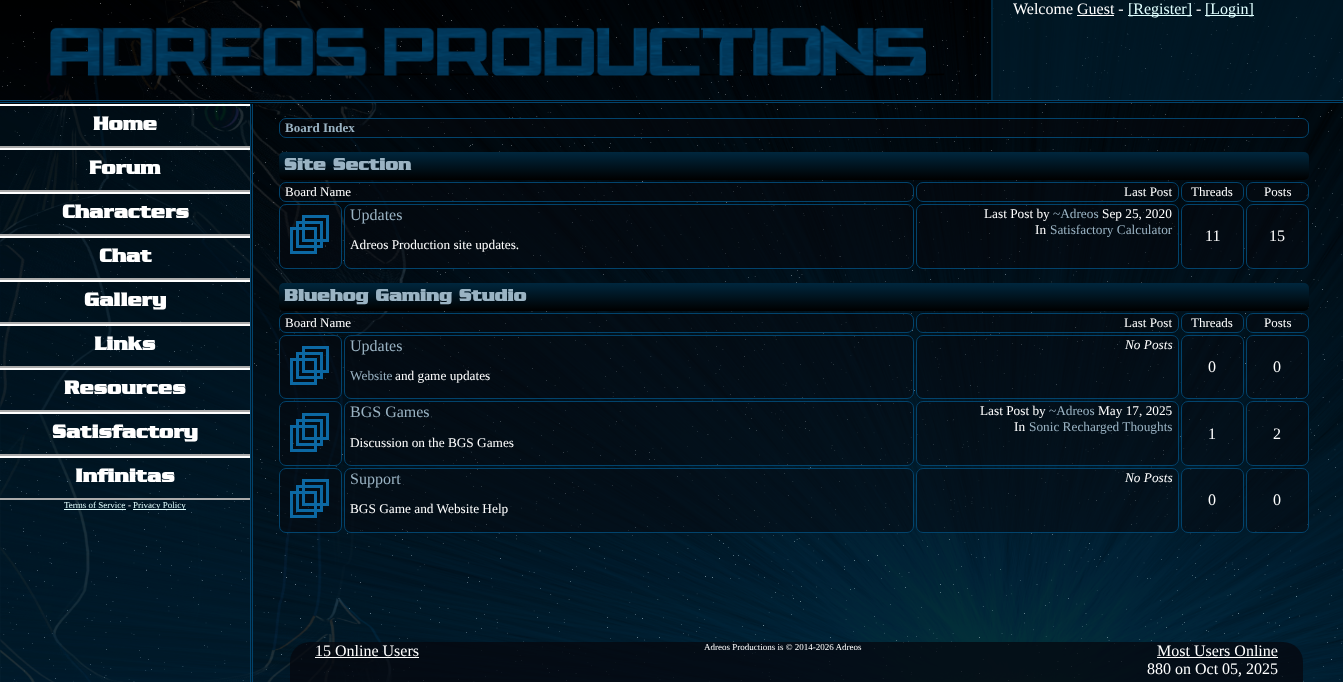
async function draw(canvas) {
  canvas.width = 1343;
  canvas.height = 682;
  const ctx = canvas.getContext('2d');
  ctx.miterLimit = 4;
  ctx.fontKerning = 'normal';
  function label(s, x, y, font, color) {
    ctx.font = font;
    ctx.fillStyle = color;
    ctx.fillText(s, x, y);
  }
  function rect(x, y, w, h, color) {
    ctx.fillStyle = color;
    ctx.fillRect(x, y, w, h);
  }
  async function image(src, x, y, w, h) {
    const img = new Image();
    img.src = src;
    await img.decode();
    ctx.drawImage(img, x, y, w, h);
  }
  let gradient;

  rect(0, 0, 1343, 682, '#fff');
  await image('assets/img1.png', 0, 0, 1343, 682);
  rect(993, 0, 350, 100, '#00273e80');
  rect(991, 0, 2, 100, '#00273e');
  label('Welcome Guest -', 1013, 14, '16px Liberation Serif', '#fff');
  rect(1128, 15, 64, 1, '#e0ffff');
  label('[Register]', 1128, 14, '16px Liberation Serif', '#e0ffff');
  label('-', 1196, 14, '16px Liberation Serif', '#fff');
  rect(1205, 15, 49, 1, '#e0ffff');
  label('[Login]', 1205, 14, '16px Liberation Serif', '#e0ffff');
  rect(1077, 15, 37, 1, '#fff');
  await image('assets/img2.png', 50, 25, 894, 51);
  rect(0, 101, 1343, 1, '#05070e80');
  rect(0, 100, 1343, 1, '#02436c');
  rect(0, 102, 1343, 1, '#02436c');
  rect(0, 104, 252, 578, '#00273e40');
  rect(250, 104, 1, 578, '#02436c');
  rect(252, 104, 1, 578, '#02436c');
  rect(0, 104, 250, 2, '#fff');
  rect(0, 146, 250, 2, '#aaa');
  label('Home', 93, 130, 'bold 20px "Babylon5"', '#fff');
  rect(0, 148, 250, 2, '#fff');
  rect(0, 190, 250, 2, '#aaa');
  label('Forum', 89, 174, 'bold 20px "Babylon5"', '#fff');
  rect(0, 192, 250, 2, '#fff');
  rect(0, 234, 250, 2, '#aaa');
  label('Characters', 62, 218, 'bold 20px "Babylon5"', '#fff');
  rect(0, 236, 250, 2, '#fff');
  rect(0, 278, 250, 2, '#aaa');
  label('Chat', 99, 262, 'bold 20px "Babylon5"', '#fff');
  rect(0, 280, 250, 2, '#fff');
  rect(0, 322, 250, 2, '#aaa');
  label('Gallery', 84, 306, 'bold 20px "Babylon5"', '#fff');
  rect(0, 324, 250, 2, '#fff');
  rect(0, 366, 250, 2, '#aaa');
  label('Links', 94, 350, 'bold 20px "Babylon5"', '#fff');
  rect(0, 368, 250, 2, '#fff');
  rect(0, 410, 250, 2, '#aaa');
  label('Resources', 64, 394, 'bold 20px "Babylon5"', '#fff');
  rect(0, 412, 250, 2, '#fff');
  rect(0, 454, 250, 2, '#aaa');
  label('Satisfactory', 52, 438, 'bold 20px "Babylon5"', '#fff');
  rect(0, 456, 250, 2, '#fff');
  rect(0, 498, 250, 2, '#aaa');
  label('Infinitas', 75, 482, 'bold 20px "Babylon5"', '#fff');
  label('Terms of Service', 64, 508, '9px Liberation Serif', '#e0ffff');
  rect(64, 509, 62, 1, '#e0ffff');
  label('-', 128, 508, '9px Liberation Serif', '#fff');
  rect(133, 509, 53, 1, '#e0ffff');
  label('Privacy Policy', 133, 508, '9px Liberation Serif', '#e0ffff');
  ctx.fillStyle = '#05070e80';
  ctx.beginPath();
  ctx.roundRect(279.5, 118.5, 1029, 19, 6.5);
  ctx.fill();
  ctx.strokeStyle = '#02436c';
  ctx.stroke();
  label('Board Index', 285, 132, 'bold 13px Liberation Serif', '#9ab3c3');
  gradient = ctx.createLinearGradient(794, 152, 794, 180);
  gradient.addColorStop(0, '#00273e');
  gradient.addColorStop(1, '#000');
  ctx.fillStyle = gradient;
  ctx.beginPath();
  ctx.roundRect(279, 152, 1030, 28, 5);
  ctx.fill();
  label('Site Section', 284, 170, 'bold 18px "Babylon5"', '#9ab3c3');
  ctx.fillStyle = '#05070e80';
  ctx.beginPath();
  ctx.roundRect(279.5, 182.5, 634, 19, 6.5);
  ctx.fill();
  ctx.stroke();
  label('Board Name', 285, 196, '13px Liberation Serif', '#fff');
  ctx.fillStyle = '#05070e80';
  ctx.beginPath();
  ctx.roundRect(916.5, 182.5, 262, 19, 6.5);
  ctx.fill();
  ctx.stroke();
  label('Last Post', 1124, 196, '13px Liberation Serif', '#fff');
  ctx.fillStyle = '#05070e80';
  ctx.beginPath();
  ctx.roundRect(1181.5, 182.5, 62, 19, 6.5);
  ctx.fill();
  ctx.stroke();
  label('Threads', 1191, 196, '13px Liberation Serif', '#fff');
  ctx.fillStyle = '#05070e80';
  ctx.beginPath();
  ctx.roundRect(1246.5, 182.5, 62, 19, 6.5);
  ctx.fill();
  ctx.stroke();
  label('Posts', 1264, 196, '13px Liberation Serif', '#fff');
  ctx.fillStyle = '#05070e80';
  ctx.beginPath();
  ctx.roundRect(279.5, 204.5, 62, 64, 6.5);
  ctx.fill();
  ctx.stroke();
  await image('assets/img3.png', 290, 215, 39, 39);
  ctx.beginPath();
  ctx.roundRect(344.5, 204.5, 569, 64, 6.5);
  ctx.fill();
  ctx.stroke();
  label('Updates', 350, 220, '16px Liberation Serif', '#9ab3c3');
  label('Adreos Production site updates.', 350, 249, '13.3px Liberation Serif', '#fff');
  ctx.fillStyle = '#05070e80';
  ctx.beginPath();
  ctx.roundRect(916.5, 204.5, 262, 64, 6.5);
  ctx.fill();
  ctx.stroke();
  label('Last Post by', 984, 218, '13.3px Liberation Serif', '#fff');
  label('~Adreos', 1053, 218, '13.3px Liberation Serif', '#9ab3c3');
  label('Sep 25, 2020', 1102, 218, '13.3px Liberation Serif', '#fff');
  label('In', 1035, 234, '13.3px Liberation Serif', '#fff');
  label('Satisfactory Calculator', 1050, 234, '13.3px Liberation Serif', '#9ab3c3');
  ctx.fillStyle = '#05070e80';
  ctx.beginPath();
  ctx.roundRect(1181.5, 204.5, 62, 64, 6.5);
  ctx.fill();
  ctx.stroke();
  label('11', 1205, 241, '16px Liberation Serif', '#fff');
  ctx.fillStyle = '#05070e80';
  ctx.beginPath();
  ctx.roundRect(1246.5, 204.5, 62, 64, 6.5);
  ctx.fill();
  ctx.stroke();
  label('15', 1269, 241, '16px Liberation Serif', '#fff');
  gradient = ctx.createLinearGradient(794, 283, 794, 311);
  gradient.addColorStop(0, '#00273e');
  gradient.addColorStop(1, '#000');
  ctx.fillStyle = gradient;
  ctx.beginPath();
  ctx.roundRect(279, 283, 1030, 28, 5);
  ctx.fill();
  label('Bluehog Gaming Studio', 284, 301, 'bold 18px "Babylon5"', '#9ab3c3');
  ctx.fillStyle = '#05070e80';
  ctx.beginPath();
  ctx.roundRect(279.5, 313.5, 634, 19, 6.5);
  ctx.fill();
  ctx.stroke();
  label('Board Name', 285, 327, '13px Liberation Serif', '#fff');
  ctx.fillStyle = '#05070e80';
  ctx.beginPath();
  ctx.roundRect(916.5, 313.5, 262, 19, 6.5);
  ctx.fill();
  ctx.stroke();
  label('Last Post', 1124, 327, '13px Liberation Serif', '#fff');
  ctx.fillStyle = '#05070e80';
  ctx.beginPath();
  ctx.roundRect(1181.5, 313.5, 62, 19, 6.5);
  ctx.fill();
  ctx.stroke();
  label('Threads', 1191, 327, '13px Liberation Serif', '#fff');
  ctx.fillStyle = '#05070e80';
  ctx.beginPath();
  ctx.roundRect(1246.5, 313.5, 62, 19, 6.5);
  ctx.fill();
  ctx.stroke();
  label('Posts', 1264, 327, '13px Liberation Serif', '#fff');
  ctx.fillStyle = '#05070e80';
  ctx.beginPath();
  ctx.roundRect(279.5, 335.5, 62, 63, 6.5);
  ctx.fill();
  ctx.stroke();
  await image('assets/img4.png', 290, 346, 39, 39);
  ctx.beginPath();
  ctx.roundRect(344.5, 335.5, 569, 63, 6.5);
  ctx.fill();
  ctx.stroke();
  label('Updates', 350, 351, '16px Liberation Serif', '#9ab3c3');
  label('Website', 350, 380, '13.3px Liberation Serif', '#9ab3c3');
  label('and game updates', 395, 380, '13.3px Liberation Serif', '#fff');
  ctx.fillStyle = '#05070e80';
  ctx.beginPath();
  ctx.roundRect(916.5, 335.5, 262, 63, 6.5);
  ctx.fill();
  ctx.stroke();
  label('No Posts', 1125, 349, 'italic 13.3px Liberation Serif', '#fff');
  ctx.fillStyle = '#05070e80';
  ctx.beginPath();
  ctx.roundRect(1181.5, 335.5, 62, 63, 6.5);
  ctx.fill();
  ctx.stroke();
  label('0', 1208, 372, '16px Liberation Serif', '#fff');
  ctx.fillStyle = '#05070e80';
  ctx.beginPath();
  ctx.roundRect(1246.5, 335.5, 62, 63, 6.5);
  ctx.fill();
  ctx.stroke();
  label('0', 1273, 372, '16px Liberation Serif', '#fff');
  ctx.fillStyle = '#05070e80';
  ctx.beginPath();
  ctx.roundRect(279.5, 401.5, 62, 64, 6.5);
  ctx.fill();
  ctx.stroke();
  await image('assets/img5.png', 290, 413, 39, 39);
  ctx.beginPath();
  ctx.roundRect(344.5, 401.5, 569, 64, 6.5);
  ctx.fill();
  ctx.stroke();
  label('BGS Games', 350, 417, '16px Liberation Serif', '#9ab3c3');
  label('Discussion on the BGS Games', 350, 447, '13.3px Liberation Serif', '#fff');
  ctx.fillStyle = '#05070e80';
  ctx.beginPath();
  ctx.roundRect(916.5, 401.5, 262, 64, 6.5);
  ctx.fill();
  ctx.stroke();
  label('Last Post by', 980, 415, '13.3px Liberation Serif', '#fff');
  label('~Adreos', 1049, 415, '13.3px Liberation Serif', '#9ab3c3');
  label('May 17, 2025', 1098, 415, '13.3px Liberation Serif', '#fff');
  label('In', 1014, 431, '13.3px Liberation Serif', '#fff');
  label('Sonic Recharged Thoughts', 1029, 431, '13.3px Liberation Serif', '#9ab3c3');
  ctx.fillStyle = '#05070e80';
  ctx.beginPath();
  ctx.roundRect(1181.5, 401.5, 62, 64, 6.5);
  ctx.fill();
  ctx.stroke();
  label('1', 1208, 439, '16px Liberation Serif', '#fff');
  ctx.fillStyle = '#05070e80';
  ctx.beginPath();
  ctx.roundRect(1246.5, 401.5, 62, 64, 6.5);
  ctx.fill();
  ctx.stroke();
  label('2', 1273, 439, '16px Liberation Serif', '#fff');
  ctx.fillStyle = '#05070e80';
  ctx.beginPath();
  ctx.roundRect(279.5, 468.5, 62, 64, 6.5);
  ctx.fill();
  ctx.stroke();
  await image('assets/img6.png', 290, 479, 39, 39);
  ctx.beginPath();
  ctx.roundRect(344.5, 468.5, 569, 64, 6.5);
  ctx.fill();
  ctx.stroke();
  label('Support', 350, 484, '16px Liberation Serif', '#9ab3c3');
  label('BGS Game and Website Help', 350, 513, '13.3px Liberation Serif', '#fff');
  ctx.fillStyle = '#05070e80';
  ctx.beginPath();
  ctx.roundRect(916.5, 468.5, 262, 64, 6.5);
  ctx.fill();
  ctx.stroke();
  label('No Posts', 1125, 482, 'italic 13.3px Liberation Serif', '#fff');
  ctx.fillStyle = '#05070e80';
  ctx.beginPath();
  ctx.roundRect(1181.5, 468.5, 62, 64, 6.5);
  ctx.fill();
  ctx.stroke();
  label('0', 1208, 505, '16px Liberation Serif', '#fff');
  ctx.fillStyle = '#05070e80';
  ctx.beginPath();
  ctx.roundRect(1246.5, 468.5, 62, 64, 6.5);
  ctx.fill();
  ctx.stroke();
  label('0', 1273, 505, '16px Liberation Serif', '#fff');
  ctx.fillStyle = '#05070ebf';
  ctx.beginPath();
  ctx.roundRect(290, 642, 1013, 40, [20, 20, 0, 0]);
  ctx.fill();
  label('15 Online Users', 315, 656, '16px Liberation Serif', '#fff');
  rect(315, 657, 104, 1, '#fff');
  label('Adreos Productions is © 2014-2026 Adreos', 704, 650, '9px Liberation Serif', '#fff');
  label('Most Users Online', 1157, 656, '16px Liberation Serif', '#fff');
  rect(1157, 657, 121, 1, '#fff');
  label('880 on Oct 05, 2025', 1147, 674, '16px Liberation Serif', '#fff');
}

draw(document.querySelector('canvas'));
